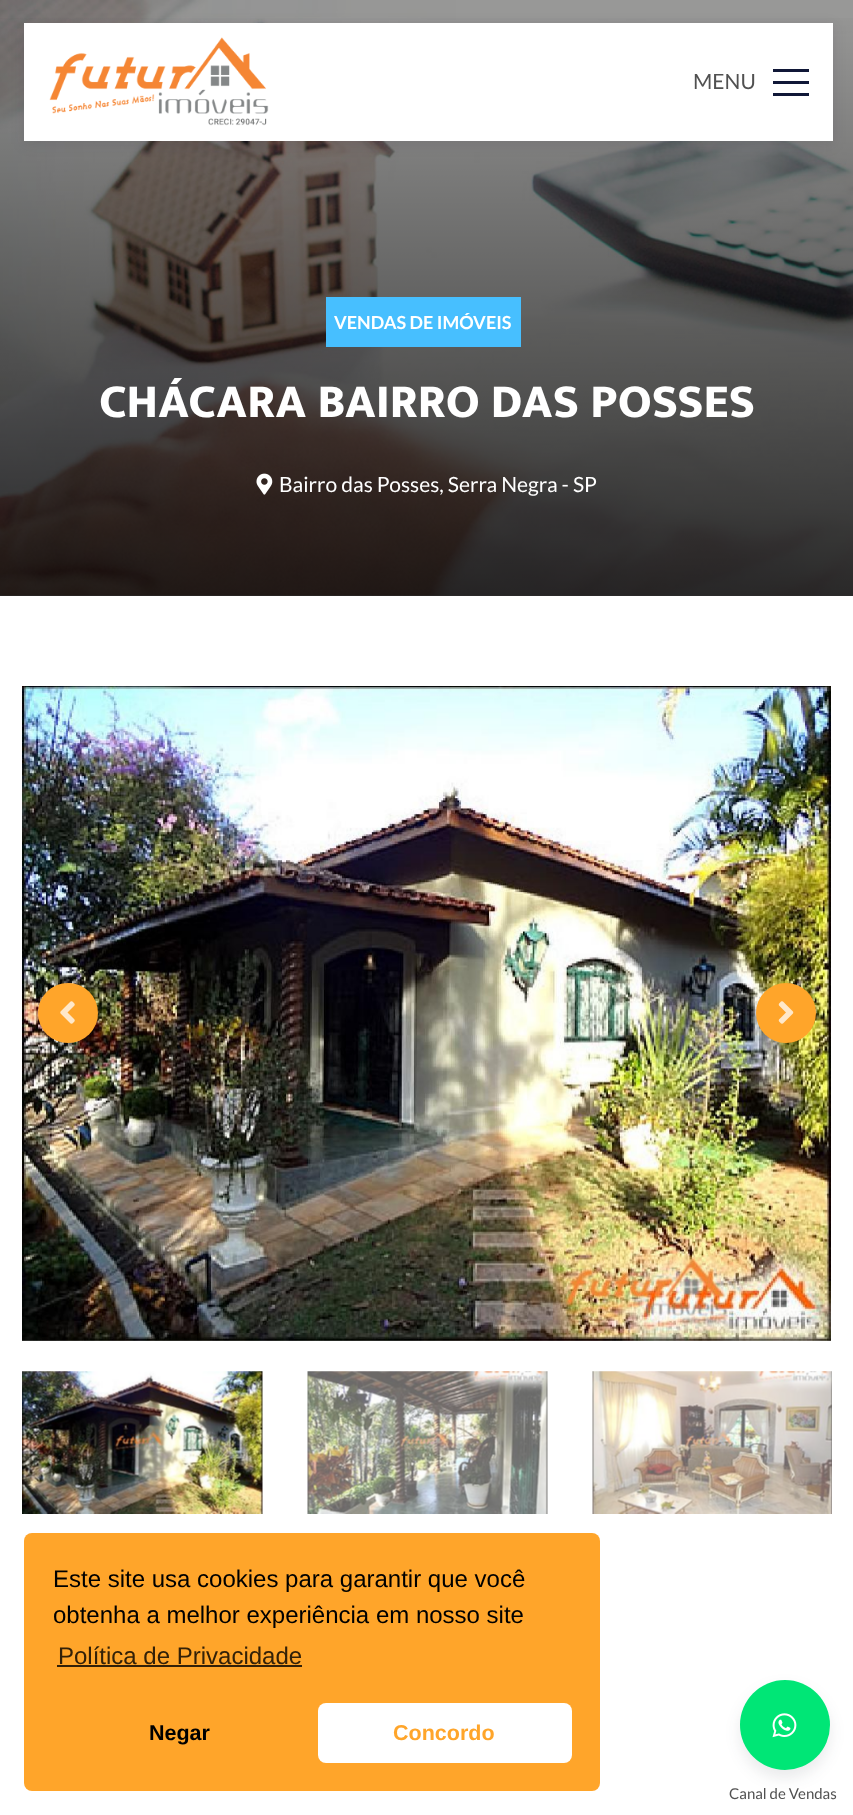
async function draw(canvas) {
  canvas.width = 853;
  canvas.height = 1815;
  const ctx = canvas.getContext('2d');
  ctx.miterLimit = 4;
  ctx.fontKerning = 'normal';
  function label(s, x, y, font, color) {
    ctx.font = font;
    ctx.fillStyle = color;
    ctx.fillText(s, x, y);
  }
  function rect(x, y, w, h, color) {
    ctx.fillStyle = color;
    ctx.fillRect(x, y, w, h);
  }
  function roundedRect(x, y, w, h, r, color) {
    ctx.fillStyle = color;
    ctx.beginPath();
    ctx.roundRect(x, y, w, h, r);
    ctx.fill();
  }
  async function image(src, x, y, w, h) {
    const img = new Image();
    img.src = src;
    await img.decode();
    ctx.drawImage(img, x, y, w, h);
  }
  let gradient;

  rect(0, 0, 853, 1815, '#fff');
  rect(0, 595, 853, 1, '#999');
  await image('assets/img2.png', 0, 0, 853, 596);
  gradient = ctx.createLinearGradient(427, 596, 427, 0);
  gradient.addColorStop(0, '#000000b3');
  gradient.addColorStop(1, '#00000000');
  ctx.fillStyle = gradient;
  ctx.fillRect(0, 18, 853, 578);
  ctx.fillStyle = '#220c2b1a';
  ctx.filter = 'blur(7px)';
  ctx.beginPath();
  ctx.rect(24, 26, 809, 118);
  ctx.fill();
  ctx.filter = 'none';
  rect(24, 23, 809, 118, '#fff');
  await image('assets/img1.png', 49, 37, 220, 89);
  label('MENU', 693, 89, '21px Lato', '#515151');
  rect(773, 69, 36, 3, '#101737');
  rect(773, 81, 36, 3, '#101737');
  rect(773, 93, 36, 3, '#101737');
  rect(326, 297, 195, 50, '#47bfff');
  label('VENDAS DE IMÓVEIS', 334, 329, 'bold 18px Lato', '#fff');
  label('CHÁCARA BAIRRO DAS POSSES', 99, 417, '800 48px Mukta', '#fff');
  await image('assets/img3.png', 256, 473, 17, 22);
  label('Bairro das Posses, Serra Negra - SP', 279, 492, '21px Lato', '#fff');
  await image('assets/img4.png', 22, 686, 809, 655);
  ctx.fillStyle = '#ffa52a';
  ctx.beginPath();
  ctx.arc(68, 1013, 30, 0, 2 * Math.PI);
  ctx.fill();
  await image('assets/img5.png', 60, 1001, 15, 23);
  ctx.beginPath();
  ctx.arc(786, 1013, 30, 0, 2 * Math.PI);
  ctx.fill();
  await image('assets/img6.png', 778, 1001, 16, 23);
  await image('assets/img7.png', 22, 1371, 241, 143);
  await image('assets/img8.png', 307, 1371, 241, 143);
  await image('assets/img9.png', 592, 1371, 240, 143);
  roundedRect(24, 1533, 576, 258, 8, '#ffa52a');
  label('Este site usa cookies para garantir que você', 53, 1587, '24px Liberation Sans', '#000');
  label('obtenha a melhor experiência em nosso site', 53, 1623, '24px Liberation Sans', '#000');
  label('Política de Privacidade', 58, 1664, '24px Liberation Sans', '#332108');
  rect(57, 1665, 245, 2, '#332108');
  label('Negar', 149, 1740, 'bold 21.5px Liberation Sans', '#000');
  roundedRect(318, 1703, 254, 60, 8, '#fff');
  label('Concordo', 393, 1740, 'bold 21.5px Liberation Sans', '#ffa52a');
  ctx.fillStyle = '#2332381a';
  ctx.filter = 'blur(7.5px)';
  ctx.beginPath();
  ctx.roundRect(740, 1688, 90, 90, 45);
  ctx.fill();
  ctx.filter = 'none';
  ctx.fillStyle = '#00e676';
  ctx.beginPath();
  ctx.arc(785, 1725, 45, 0, 2 * Math.PI);
  ctx.fill();
  await image('assets/img10.png', 772, 1713, 25, 25);
  label('Canal de Vendas', 729, 1799, '15px Lato', '#515151');
}

draw(document.querySelector('canvas'));
